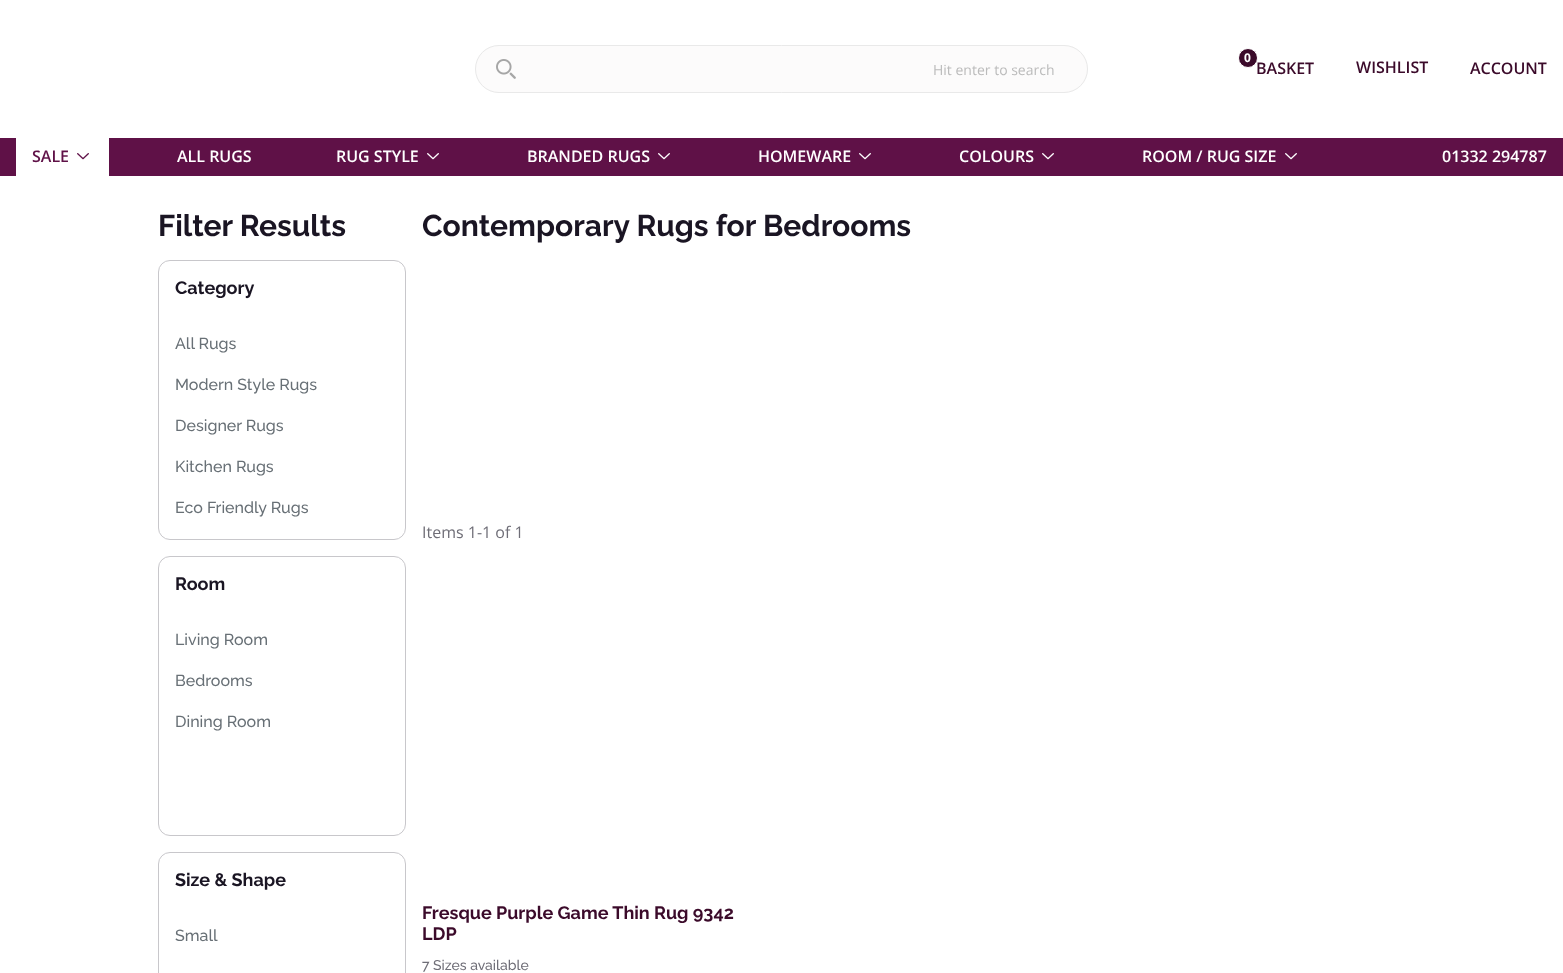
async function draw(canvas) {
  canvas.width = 1563;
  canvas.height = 973;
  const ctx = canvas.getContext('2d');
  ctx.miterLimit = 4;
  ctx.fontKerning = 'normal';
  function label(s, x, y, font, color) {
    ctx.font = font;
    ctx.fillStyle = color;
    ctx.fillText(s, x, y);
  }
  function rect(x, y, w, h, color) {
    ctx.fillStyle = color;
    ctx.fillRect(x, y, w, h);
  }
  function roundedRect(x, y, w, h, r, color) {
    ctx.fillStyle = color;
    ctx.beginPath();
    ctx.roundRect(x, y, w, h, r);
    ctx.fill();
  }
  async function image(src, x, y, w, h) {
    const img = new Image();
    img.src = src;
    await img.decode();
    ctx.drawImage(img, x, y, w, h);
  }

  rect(0, 0, 1563, 973, '#fff');
  roundedRect(475, 45, 613, 48, 24, '#fcfbfb');
  await image('assets/img1.png', 496, 59, 20, 20);
  ctx.beginPath();
  ctx.roundRect(475.5, 45.5, 612, 47, 23.5);
  ctx.strokeStyle = '#e9e9e9';
  ctx.stroke();
  label('Hit enter to search', 933, 75, '14px Open Sans', '#bbb');
  ctx.fillStyle = '#3b0a2a';
  ctx.beginPath();
  ctx.arc(1248, 58, 9.5, 0, 2 * Math.PI);
  ctx.fill();
  ctx.strokeStyle = '#fff';
  ctx.stroke();
  label('0', 1244, 62, 'bold 12px Open Sans', '#fff');
  label('BASKET', 1256, 74, '600 16px Open Sans', '#3b0a2a');
  label('WISHLIST', 1356, 73, '600 16px Open Sans', '#3b0a2a');
  label('ACCOUNT', 1470, 74, '600 16px Open Sans', '#3b0a2a');
  rect(0, 138, 1563, 38, '#5f1147');
  rect(16, 138, 93, 38, '#fff');
  label('SALE', 32, 162, '600 16px Open Sans', '#5f1147');
  await image('assets/img2.png', 77, 153, 12, 7);
  label('ALL RUGS', 177, 162, '600 16px Open Sans', '#fff');
  label('RUG STYLE', 336, 162, '600 16px Open Sans', '#fff');
  await image('assets/img3.png', 427, 153, 12, 7);
  label('BRANDED RUGS', 527, 162, '600 16px Open Sans', '#fff');
  await image('assets/img3.png', 658, 153, 12, 7);
  label('HOMEWARE', 758, 162, '600 16px Open Sans', '#fff');
  await image('assets/img3.png', 859, 153, 12, 7);
  label('COLOURS', 959, 162, '600 16px Open Sans', '#fff');
  await image('assets/img3.png', 1042, 153, 12, 7);
  label('ROOM / RUG SIZE', 1142, 162, '600 16px Open Sans', '#fff');
  await image('assets/img3.png', 1285, 153, 12, 7);
  label('01332 294787', 1442, 162, '600 16px Open Sans', '#fff');
  label('Filter Results', 158, 236, 'bold 30px Raleway', '#1a1523');
  ctx.beginPath();
  ctx.roundRect(158.5, 260.5, 247, 279, 11.5);
  ctx.strokeStyle = '#c8c7cb';
  ctx.stroke();
  label('Category', 175, 294, 'bold 18px Raleway', '#1a1523');
  label('All Rugs', 175, 349, '500 16px Raleway', '#687076');
  label('Modern Style Rugs', 175, 390, '500 16px Raleway', '#687076');
  label('Designer Rugs', 175, 431, '500 16px Raleway', '#687076');
  label('Kitchen Rugs', 175, 472, '500 16px Raleway', '#687076');
  label('Eco Friendly Rugs', 175, 513, '500 16px Raleway', '#687076');
  ctx.beginPath();
  ctx.roundRect(158.5, 556.5, 247, 279, 11.5);
  ctx.stroke();
  label('Room', 175, 590, 'bold 18px Raleway', '#1a1523');
  label('Living Room', 175, 645, '500 16px Raleway', '#687076');
  label('Bedrooms', 175, 686, '500 16px Raleway', '#687076');
  label('Dining Room', 175, 727, '500 16px Raleway', '#687076');
  ctx.beginPath();
  ctx.roundRect(158.5, 852.5, 247, 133, 11.5);
  ctx.stroke();
  label('Size & Shape', 175, 886, 'bold 18px Raleway', '#1a1523');
  label('Small', 175, 941, '500 16px Raleway', '#687076');
  label('Contemporary Rugs for Bedrooms', 422, 236, 'bold 30px Raleway', '#1a1523');
  label('Items 1-1 of 1', 422, 538, '16px Open Sans', '#6f6e77');
  label('Fresque Purple Game Thin Rug 9342', 422, 919, 'bold 18px Raleway', '#3b0a2a');
  label('LDP', 422, 940, 'bold 18px Raleway', '#3b0a2a');
  label('7 Sizes available', 422, 970, '500 14px Raleway', '#6f6e77');
}

draw(document.querySelector('canvas'));
